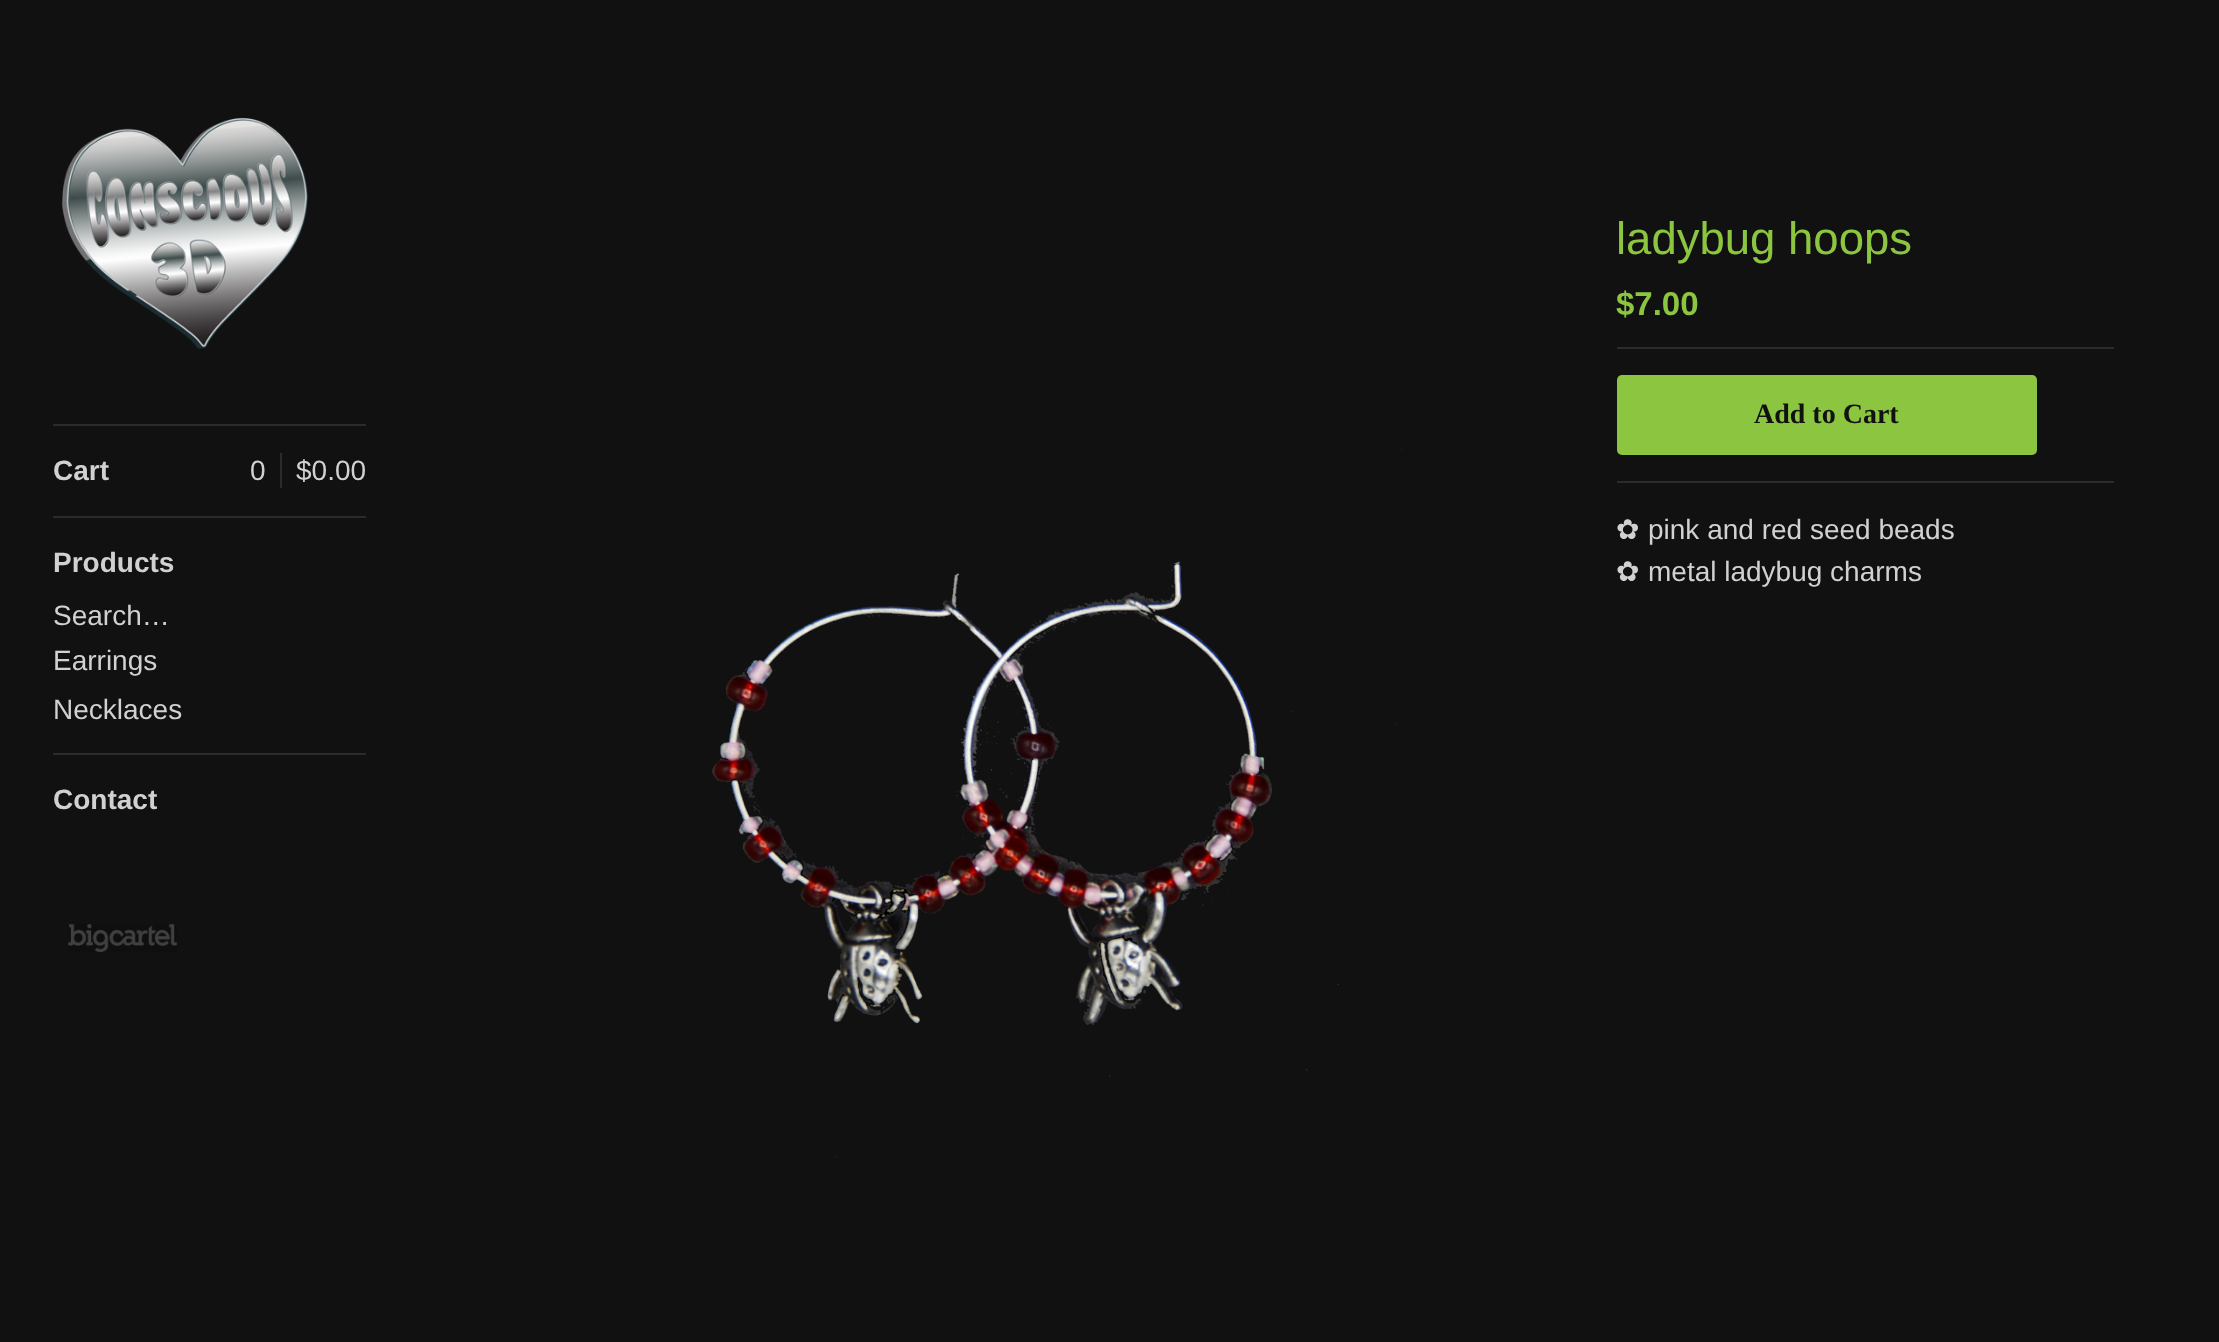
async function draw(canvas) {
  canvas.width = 2219;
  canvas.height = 1342;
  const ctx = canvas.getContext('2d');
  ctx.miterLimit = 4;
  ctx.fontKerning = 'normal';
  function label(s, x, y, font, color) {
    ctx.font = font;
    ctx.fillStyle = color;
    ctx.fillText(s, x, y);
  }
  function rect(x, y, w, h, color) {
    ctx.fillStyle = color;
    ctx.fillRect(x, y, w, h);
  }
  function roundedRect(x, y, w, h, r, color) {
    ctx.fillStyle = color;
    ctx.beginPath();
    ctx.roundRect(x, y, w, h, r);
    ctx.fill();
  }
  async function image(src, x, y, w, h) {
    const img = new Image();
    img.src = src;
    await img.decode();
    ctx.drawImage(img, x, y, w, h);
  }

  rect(0, 0, 2219, 1342, '#111');
  label('ladybug hoops', 1616, 254, '45.5px Liberation Sans', '#8cc640');
  label('$7.00', 1616, 315, 'bold 33px Liberation Sans', '#8cc640');
  rect(1617, 347, 497, 2, '#2b2b2b');
  roundedRect(1617, 375, 420, 80, 5, '#8cc640');
  label('Add to Cart', 1754, 423, 'bold 28px Liberation Serif', '#111');
  rect(1617, 481, 497, 2, '#2b2b2b');
  label('✿', 1616, 539, '28px DejaVu Sans', '#d1d1d1');
  label('pink and red seed beads', 1648, 539, '28px Liberation Sans', '#d1d1d1');
  label('✿', 1616, 581, '28px DejaVu Sans', '#d1d1d1');
  label('metal ladybug charms', 1648, 581, '28px Liberation Sans', '#d1d1d1');
  await image('assets/img1.png', 712, 448, 690, 710);
  await image('assets/img2.png', 61, 117, 247, 232);
  rect(53, 424, 313, 2, '#2b2b2b');
  label('Cart', 53, 480, 'bold 28px Liberation Sans', '#d1d1d1');
  label('0', 250, 480, '28px Liberation Sans', '#d1d1d1');
  rect(280, 453, 2, 35, '#2b2b2b');
  label('$0.00', 296, 480, '28px Liberation Sans', '#d1d1d1');
  rect(53, 516, 313, 2, '#2b2b2b');
  label('Products', 53, 572, 'bold 28px Liberation Sans', '#d1d1d1');
  label('Search…', 53, 625, '28px Liberation Sans', '#d1d1d1');
  label('Earrings', 53, 670, '28px Liberation Sans', '#d1d1d1');
  label('Necklaces', 53, 719, '28px Liberation Sans', '#d1d1d1');
  rect(53, 753, 313, 2, '#2b2b2b');
  label('Contact', 53, 809, 'bold 28px Liberation Sans', '#d1d1d1');
  await image('assets/img3.png', 68, 924, 109, 28);
}

draw(document.querySelector('canvas'));
